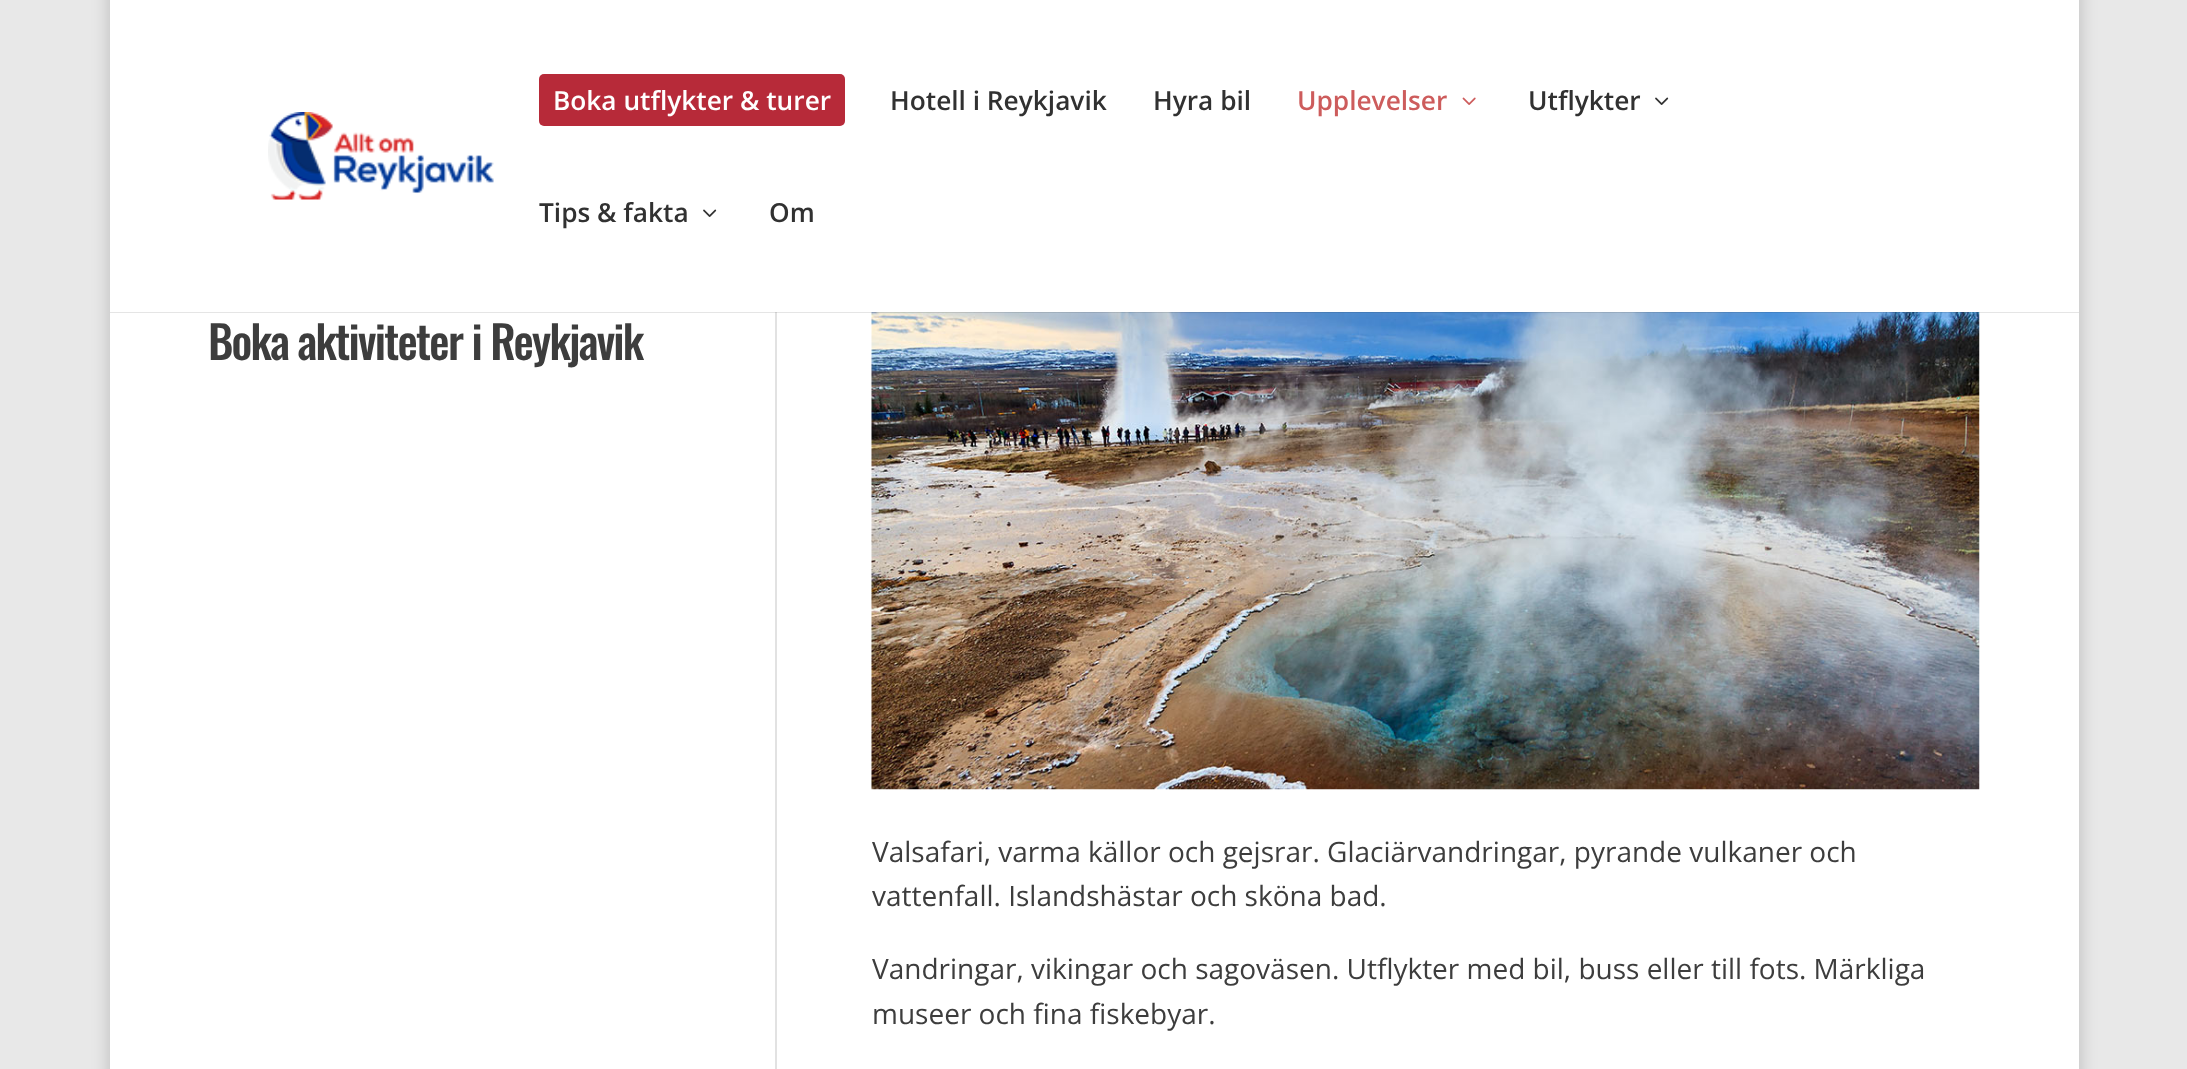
async function draw(canvas) {
  canvas.width = 2187;
  canvas.height = 1069;
  const ctx = canvas.getContext('2d');
  ctx.miterLimit = 4;
  ctx.fontKerning = 'normal';
  function label(s, x, y, font, color) {
    ctx.font = font;
    ctx.fillStyle = color;
    ctx.fillText(s, x, y);
  }
  function rect(x, y, w, h, color) {
    ctx.fillStyle = color;
    ctx.fillRect(x, y, w, h);
  }
  function roundedRect(x, y, w, h, r, color) {
    ctx.fillStyle = color;
    ctx.beginPath();
    ctx.roundRect(x, y, w, h, r);
    ctx.fill();
  }
  async function image(src, x, y, w, h) {
    const img = new Image();
    img.src = src;
    await img.decode();
    ctx.drawImage(img, x, y, w, h);
  }
  let path;

  rect(0, 0, 2187, 1069, '#e8e8e8');
  ctx.fillStyle = '#00000033';
  ctx.filter = 'blur(9px)';
  ctx.beginPath();
  ctx.rect(110, -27, 1969, 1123);
  ctx.fill();
  ctx.filter = 'none';
  rect(110, 0, 1969, 1069, '#fff');
  rect(775, 312, 2, 757, '#e2e2e2');
  await image('assets/img4.png', 871, 312, 1109, 478);
  ctx.fillStyle = '#0000001a';
  path = new Path2D('M110 2V313H2079V312H110Z');
  ctx.fill(path);
  await image('assets/img1.png', 268, 112, 226, 88);
  roundedRect(539, 74, 306, 52, 5, '#b72a39');
  label('Boka utflykter & turer', 553, 110, '600 26.25px Open Sans', '#fff');
  label('Hotell i Reykjavik', 890, 110, '600 26.25px Open Sans', '#313131');
  label('Hyra bil', 1153, 110, '600 26.25px Open Sans', '#313131');
  label('Upplevelser', 1297, 110, '600 26.25px Open Sans', '#cd5c5c');
  await image('assets/img2.png', 1462, 97, 14, 8);
  label('Utflykter', 1528, 110, '600 26.25px Open Sans', '#313131');
  await image('assets/img3.png', 1655, 97, 14, 8);
  label('Tips & fakta', 539, 222, '600 26.25px Open Sans', '#313131');
  await image('assets/img3.png', 703, 209, 14, 8);
  label('Om', 769, 222, '600 26.25px Open Sans', '#313131');
  ctx.letterSpacing = '-1.75px';
  label('Boka aktiviteter i Reykjavik', 208, 360, '500 45.5px Oswald', '#3d3d3d');
  ctx.letterSpacing = '0px';
  label('Valsafari, varma källor och gejsrar. Glaciärvandringar, pyrande vulkaner och', 872, 862, '28px Open Sans', '#3d3d3d');
  label('vattenfall. Islandshästar och sköna bad.', 872, 906, '28px Open Sans', '#3d3d3d');
  label('Vandringar, vikingar och sagoväsen. Utflykter med bil, buss eller till fots. Märkliga', 872, 979, '28px Open Sans', '#3d3d3d');
  label('museer och fina fiskebyar.', 872, 1024, '28px Open Sans', '#3d3d3d');
}

draw(document.querySelector('canvas'));
